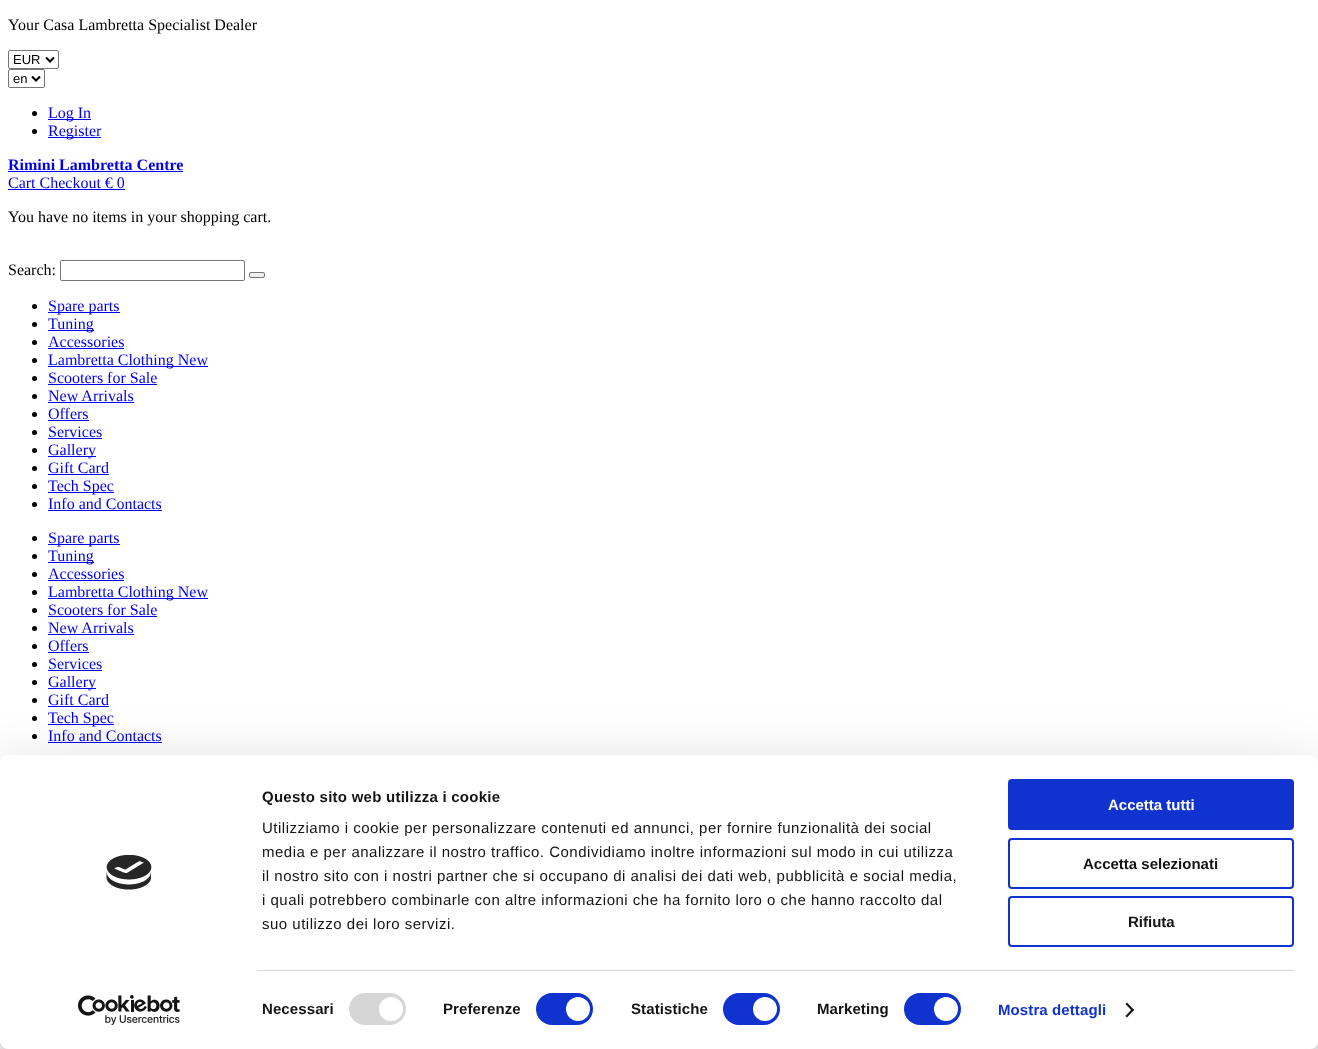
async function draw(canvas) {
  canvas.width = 1318;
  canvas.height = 1049;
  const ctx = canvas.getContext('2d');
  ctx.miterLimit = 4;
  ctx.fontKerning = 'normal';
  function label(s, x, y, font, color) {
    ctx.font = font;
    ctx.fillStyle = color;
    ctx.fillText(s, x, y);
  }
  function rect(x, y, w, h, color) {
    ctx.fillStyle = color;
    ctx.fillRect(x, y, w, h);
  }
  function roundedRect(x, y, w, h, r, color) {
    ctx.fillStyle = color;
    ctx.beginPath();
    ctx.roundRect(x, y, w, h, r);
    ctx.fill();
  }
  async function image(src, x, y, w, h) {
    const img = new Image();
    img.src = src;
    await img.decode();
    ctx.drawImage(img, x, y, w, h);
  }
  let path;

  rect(0, 0, 1318, 1049, '#fff');
  label('Your Casa Lambretta Specialist Dealer', 8, 30, '16px Liberation Serif', '#000');
  ctx.beginPath();
  ctx.roundRect(8.5, 50.5, 50, 18, 1.5);
  ctx.strokeStyle = '#767676';
  ctx.stroke();
  path = new Path2D('M46 57.5L50 61.5L54 57.5');
  ctx.strokeStyle = '#000';
  ctx.lineWidth = 2;
  ctx.stroke(path);
  label('EUR', 13, 64, '13px Liberation Sans', '#000');
  ctx.beginPath();
  ctx.roundRect(8.5, 69.5, 36, 18, 1.5);
  ctx.strokeStyle = '#767676';
  ctx.lineWidth = 1;
  ctx.stroke();
  path = new Path2D('M32 76.5L36 80.5L40 76.5');
  ctx.strokeStyle = '#000';
  ctx.lineWidth = 2;
  ctx.stroke(path);
  label('en', 13, 83, '13px Liberation Sans', '#000');
  ctx.beginPath();
  ctx.arc(34.5, 113.5, 2.5, 0, 2 * Math.PI);
  ctx.fill();
  rect(48, 119, 43, 1, '#00e');
  label('Log In', 48, 118, '16px Liberation Serif', '#00e');
  ctx.fillStyle = '#000';
  ctx.beginPath();
  ctx.arc(34.5, 131.5, 2.5, 0, 2 * Math.PI);
  ctx.fill();
  rect(48, 137, 53, 1, '#00e');
  label('Register', 48, 136, '16px Liberation Serif', '#00e');
  label('Rimini Lambretta Centre', 8, 170, 'bold 16px Liberation Serif', '#00e');
  rect(8, 171, 175, 1, '#00e');
  label('Cart Checkout € 0', 8, 188, '16px Liberation Serif', '#00e');
  rect(8, 189, 117, 1, '#00e');
  label('You have no items in your shopping cart.', 8, 222, '16px Liberation Serif', '#000');
  label('Search:', 8, 275, '16px Liberation Serif', '#000');
  ctx.beginPath();
  ctx.roundRect(60.5, 260.5, 184, 20, 1.5);
  ctx.strokeStyle = '#767676';
  ctx.lineWidth = 1;
  ctx.stroke();
  ctx.fillStyle = '#efefef';
  ctx.beginPath();
  ctx.roundRect(249.5, 272.5, 15, 5, 1.5);
  ctx.fill();
  ctx.stroke();
  ctx.fillStyle = '#000';
  ctx.beginPath();
  ctx.arc(34.5, 306.5, 2.5, 0, 2 * Math.PI);
  ctx.fill();
  rect(48, 312, 72, 1, '#00e');
  label('Spare parts', 48, 311, '16px Liberation Serif', '#00e');
  ctx.fillStyle = '#000';
  ctx.beginPath();
  ctx.arc(34.5, 324.5, 2.5, 0, 2 * Math.PI);
  ctx.fill();
  rect(48, 330, 46, 1, '#00e');
  label('Tuning', 48, 329, '16px Liberation Serif', '#00e');
  ctx.fillStyle = '#000';
  ctx.beginPath();
  ctx.arc(34.5, 342.5, 2.5, 0, 2 * Math.PI);
  ctx.fill();
  label('Accessories', 48, 347, '16px Liberation Serif', '#00e');
  rect(48, 348, 76, 1, '#00e');
  ctx.fillStyle = '#000';
  ctx.beginPath();
  ctx.arc(34.5, 360.5, 2.5, 0, 2 * Math.PI);
  ctx.fill();
  rect(48, 366, 160, 1, '#00e');
  label('Lambretta Clothing New', 48, 365, '16px Liberation Serif', '#00e');
  ctx.fillStyle = '#000';
  ctx.beginPath();
  ctx.arc(34.5, 378.5, 2.5, 0, 2 * Math.PI);
  ctx.fill();
  label('Scooters for Sale', 48, 383, '16px Liberation Serif', '#00e');
  rect(48, 384, 109, 1, '#00e');
  ctx.fillStyle = '#000';
  ctx.beginPath();
  ctx.arc(34.5, 396.5, 2.5, 0, 2 * Math.PI);
  ctx.fill();
  label('New Arrivals', 48, 401, '16px Liberation Serif', '#00e');
  rect(48, 402, 86, 1, '#00e');
  ctx.fillStyle = '#000';
  ctx.beginPath();
  ctx.arc(34.5, 414.5, 2.5, 0, 2 * Math.PI);
  ctx.fill();
  label('Offers', 48, 419, '16px Liberation Serif', '#00e');
  rect(48, 420, 41, 1, '#00e');
  ctx.fillStyle = '#000';
  ctx.beginPath();
  ctx.arc(34.5, 432.5, 2.5, 0, 2 * Math.PI);
  ctx.fill();
  label('Services', 48, 437, '16px Liberation Serif', '#00e');
  rect(48, 438, 54, 1, '#00e');
  ctx.fillStyle = '#000';
  ctx.beginPath();
  ctx.arc(34.5, 450.5, 2.5, 0, 2 * Math.PI);
  ctx.fill();
  rect(48, 456, 48, 1, '#00e');
  label('Gallery', 48, 455, '16px Liberation Serif', '#00e');
  ctx.fillStyle = '#000';
  ctx.beginPath();
  ctx.arc(34.5, 468.5, 2.5, 0, 2 * Math.PI);
  ctx.fill();
  label('Gift Card', 48, 473, '16px Liberation Serif', '#00e');
  rect(48, 474, 61, 1, '#00e');
  ctx.fillStyle = '#000';
  ctx.beginPath();
  ctx.arc(34.5, 486.5, 2.5, 0, 2 * Math.PI);
  ctx.fill();
  rect(48, 492, 66, 1, '#00e');
  label('Tech Spec', 48, 491, '16px Liberation Serif', '#00e');
  ctx.fillStyle = '#000';
  ctx.beginPath();
  ctx.arc(34.5, 504.5, 2.5, 0, 2 * Math.PI);
  ctx.fill();
  label('Info and Contacts', 48, 509, '16px Liberation Serif', '#00e');
  rect(48, 510, 114, 1, '#00e');
  ctx.fillStyle = '#000';
  ctx.beginPath();
  ctx.arc(34.5, 538.5, 2.5, 0, 2 * Math.PI);
  ctx.fill();
  rect(48, 544, 72, 1, '#00e');
  label('Spare parts', 48, 543, '16px Liberation Serif', '#00e');
  ctx.fillStyle = '#000';
  ctx.beginPath();
  ctx.arc(34.5, 556.5, 2.5, 0, 2 * Math.PI);
  ctx.fill();
  rect(48, 562, 46, 1, '#00e');
  label('Tuning', 48, 561, '16px Liberation Serif', '#00e');
  ctx.fillStyle = '#000';
  ctx.beginPath();
  ctx.arc(34.5, 574.5, 2.5, 0, 2 * Math.PI);
  ctx.fill();
  label('Accessories', 48, 579, '16px Liberation Serif', '#00e');
  rect(48, 580, 76, 1, '#00e');
  ctx.fillStyle = '#000';
  ctx.beginPath();
  ctx.arc(34.5, 592.5, 2.5, 0, 2 * Math.PI);
  ctx.fill();
  rect(48, 598, 160, 1, '#00e');
  label('Lambretta Clothing New', 48, 597, '16px Liberation Serif', '#00e');
  ctx.fillStyle = '#000';
  ctx.beginPath();
  ctx.arc(34.5, 610.5, 2.5, 0, 2 * Math.PI);
  ctx.fill();
  label('Scooters for Sale', 48, 615, '16px Liberation Serif', '#00e');
  rect(48, 616, 109, 1, '#00e');
  ctx.fillStyle = '#000';
  ctx.beginPath();
  ctx.arc(34.5, 628.5, 2.5, 0, 2 * Math.PI);
  ctx.fill();
  label('New Arrivals', 48, 633, '16px Liberation Serif', '#00e');
  rect(48, 634, 86, 1, '#00e');
  ctx.fillStyle = '#000';
  ctx.beginPath();
  ctx.arc(34.5, 646.5, 2.5, 0, 2 * Math.PI);
  ctx.fill();
  label('Offers', 48, 651, '16px Liberation Serif', '#00e');
  rect(48, 652, 41, 1, '#00e');
  ctx.fillStyle = '#000';
  ctx.beginPath();
  ctx.arc(34.5, 664.5, 2.5, 0, 2 * Math.PI);
  ctx.fill();
  label('Services', 48, 669, '16px Liberation Serif', '#00e');
  rect(48, 670, 54, 1, '#00e');
  ctx.fillStyle = '#000';
  ctx.beginPath();
  ctx.arc(34.5, 682.5, 2.5, 0, 2 * Math.PI);
  ctx.fill();
  rect(48, 688, 48, 1, '#00e');
  label('Gallery', 48, 687, '16px Liberation Serif', '#00e');
  ctx.fillStyle = '#000';
  ctx.beginPath();
  ctx.arc(34.5, 700.5, 2.5, 0, 2 * Math.PI);
  ctx.fill();
  label('Gift Card', 48, 705, '16px Liberation Serif', '#00e');
  rect(48, 706, 61, 1, '#00e');
  ctx.fillStyle = '#000';
  ctx.beginPath();
  ctx.arc(34.5, 718.5, 2.5, 0, 2 * Math.PI);
  ctx.fill();
  rect(48, 724, 66, 1, '#00e');
  label('Tech Spec', 48, 723, '16px Liberation Serif', '#00e');
  ctx.fillStyle = '#000';
  ctx.beginPath();
  ctx.arc(34.5, 736.5, 2.5, 0, 2 * Math.PI);
  ctx.fill();
  label('Info and Contacts', 48, 741, '16px Liberation Serif', '#00e');
  rect(48, 742, 114, 1, '#00e');
  ctx.fillStyle = '#0000004d';
  ctx.filter = 'blur(35px)';
  ctx.beginPath();
  ctx.roundRect(0, 785, 1318, 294, 8);
  ctx.fill();
  ctx.filter = 'none';
  roundedRect(0, 755, 1318, 294, 8, '#fff');
  await image('assets/img1.png', 106, 855, 46, 35);
  await image('assets/img2.png', 78, 995, 102, 30);
  ctx.letterSpacing = '0.25px';
  label('Questo sito web utilizza i cookie', 262, 802, 'bold 15px Liberation Sans', '#141414');
  ctx.letterSpacing = '0.5px';
  label('Utilizziamo i cookie per personalizzare contenuti ed annunci, per fornire funzionalità dei social', 262, 833, '15px Liberation Sans', '#141414');
  label('media e per analizzare il nostro traffico. Condividiamo inoltre informazioni sul modo in cui utilizza', 262, 857, '15px Liberation Sans', '#141414');
  label('il nostro sito con i nostri partner che si occupano di analisi dei dati web, pubblicità e social media,', 262, 881, '15px Liberation Sans', '#141414');
  label('i quali potrebbero combinarle con altre informazioni che ha fornito loro o che hanno raccolto dal', 262, 905, '15px Liberation Sans', '#141414');
  label('suo utilizzo dei loro servizi.', 262, 929, '15px Liberation Sans', '#141414');
  rect(257, 970, 1037, 1, '#d6d6d6');
  ctx.letterSpacing = '0.1px';
  label('Necessari', 262, 1014, 'bold 15px Liberation Sans', '#141414');
  roundedRect(349, 993, 57, 32, 16, '#d6d6d6');
  ctx.fillStyle = '#fff';
  ctx.beginPath();
  ctx.arc(391, 1009, 12, 0, 2 * Math.PI);
  ctx.fill();
  label('Preferenze', 443, 1014, 'bold 15px Liberation Sans', '#141414');
  roundedRect(536, 993, 57, 32, 16, '#1032cf');
  ctx.fillStyle = '#fff';
  ctx.beginPath();
  ctx.arc(578, 1009, 12, 0, 2 * Math.PI);
  ctx.fill();
  label('Statistiche', 631, 1014, 'bold 15px Liberation Sans', '#141414');
  roundedRect(723, 993, 57, 32, 16, '#1032cf');
  ctx.fillStyle = '#fff';
  ctx.beginPath();
  ctx.arc(765, 1009, 12, 0, 2 * Math.PI);
  ctx.fill();
  label('Marketing', 817, 1014, 'bold 15px Liberation Sans', '#141414');
  roundedRect(904, 993, 57, 32, 16, '#1032cf');
  ctx.fillStyle = '#fff';
  ctx.beginPath();
  ctx.arc(946, 1009, 12, 0, 2 * Math.PI);
  ctx.fill();
  label('Mostra dettagli', 998, 1015, 'bold 15px Liberation Sans', '#1032cf');
  ctx.fillStyle = '#141414';
  path = new Path2D('M1127 1002.5L1134 1010L1132.5 1011.5L1125.5 1004Z');
  ctx.fill(path);
  path = new Path2D('M1132.5 1008.5L1134 1010L1127 1017.5L1125.5 1016Z');
  ctx.fill(path);
  ctx.fillStyle = '#1032cf';
  ctx.beginPath();
  ctx.roundRect(1009, 780, 284, 49, 3);
  ctx.fill();
  ctx.strokeStyle = '#1032cf';
  ctx.lineWidth = 2;
  ctx.stroke();
  ctx.letterSpacing = '0px';
  label('Accetta tutti', 1108, 810, 'bold 15px Liberation Sans', '#fff');
  ctx.beginPath();
  ctx.roundRect(1009, 839, 284, 49, 3);
  ctx.stroke();
  label('Accetta selezionati', 1083, 869, 'bold 15px Liberation Sans', '#141414');
  ctx.beginPath();
  ctx.roundRect(1009, 897, 284, 49, 3);
  ctx.stroke();
  label('Rifiuta', 1128, 927, 'bold 15px Liberation Sans', '#141414');
}

draw(document.querySelector('canvas'));
